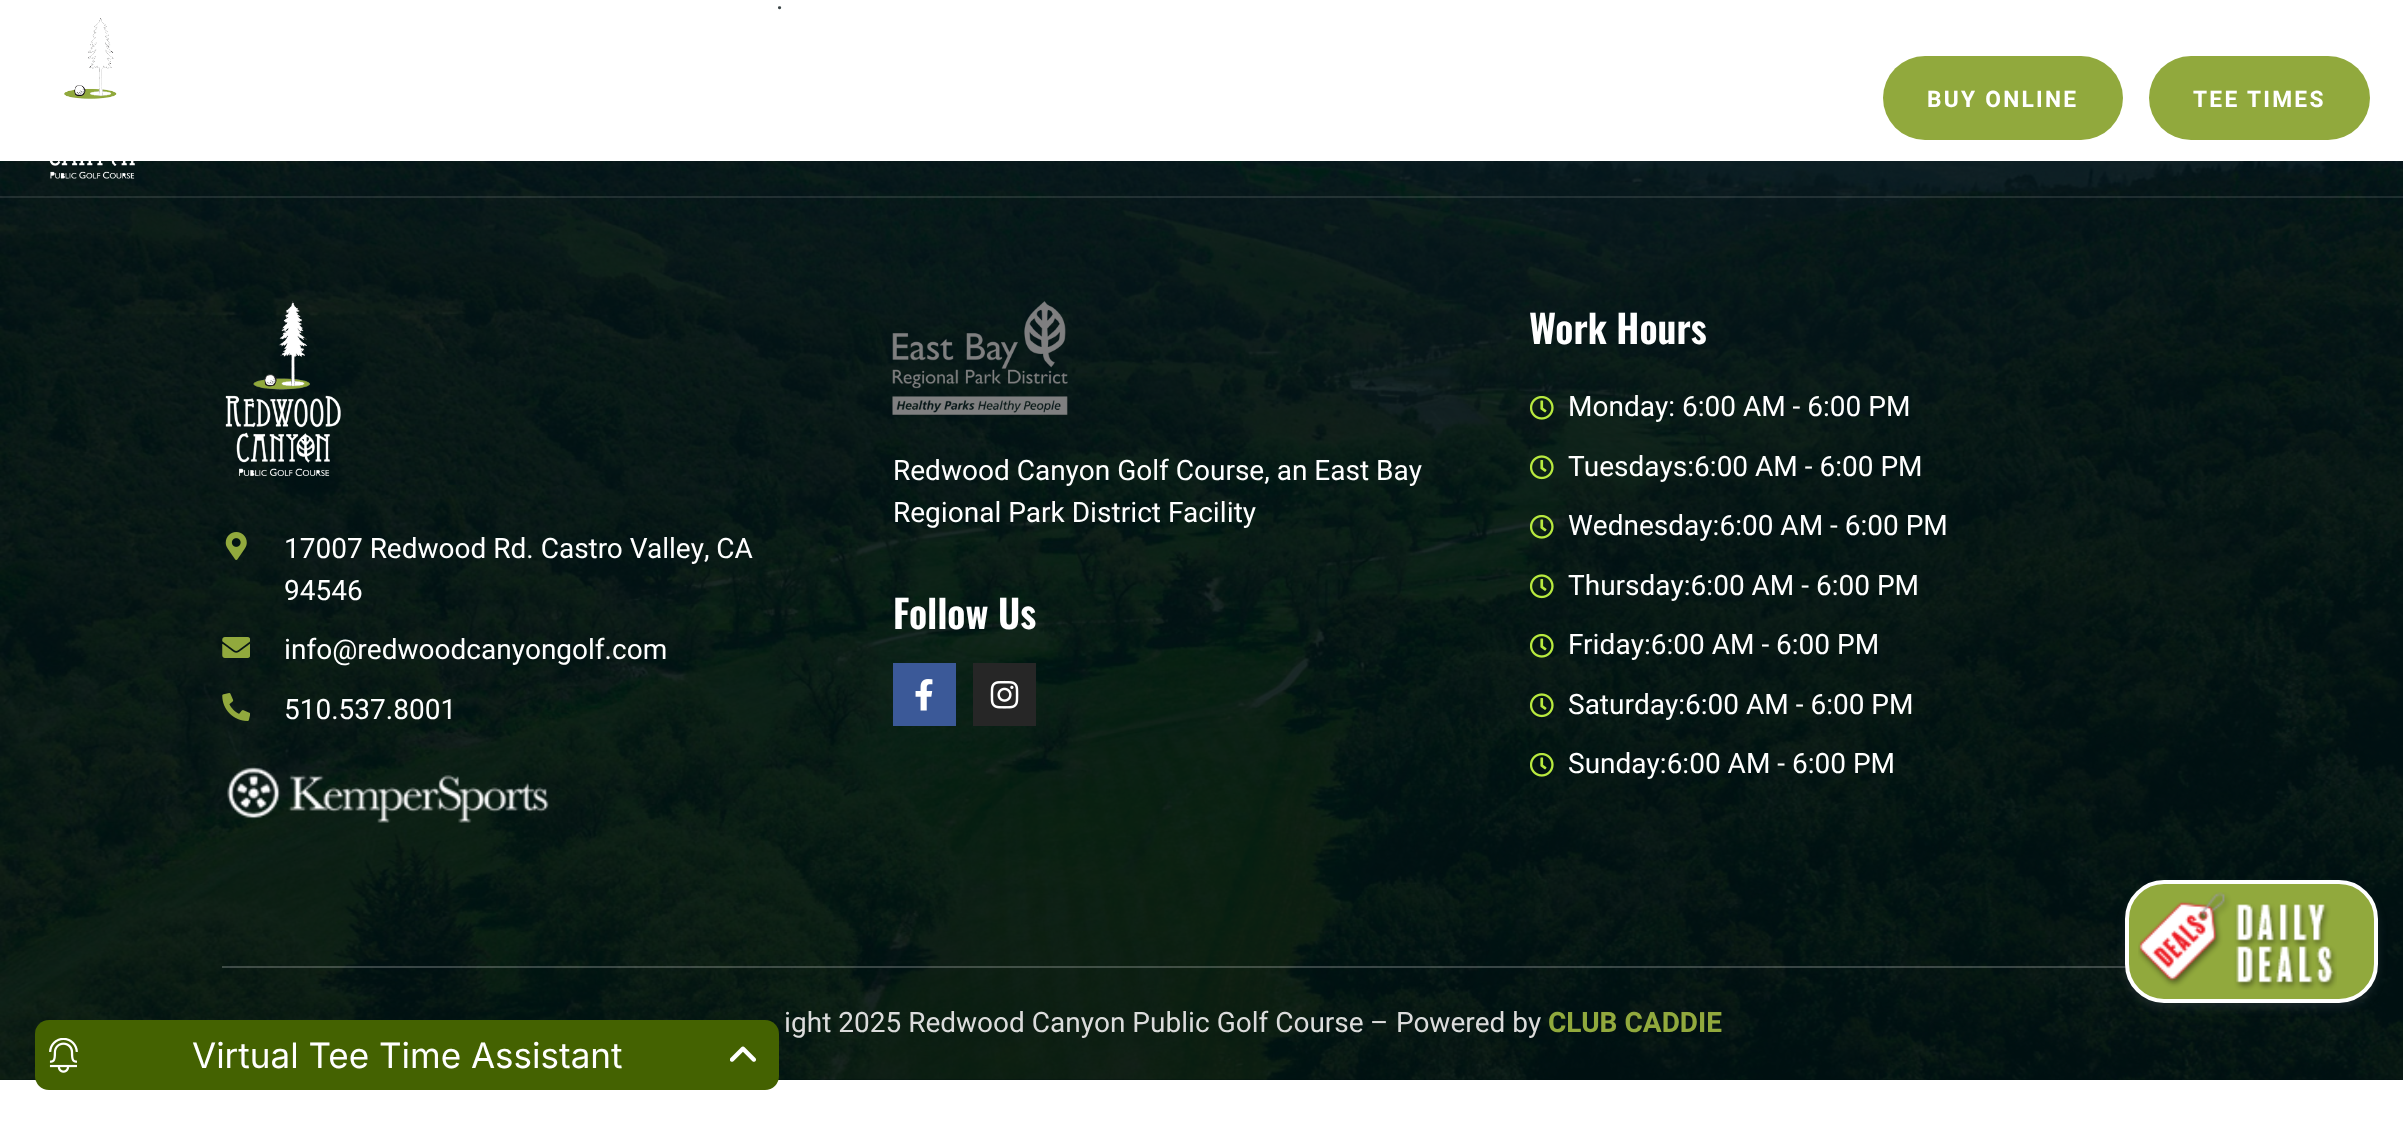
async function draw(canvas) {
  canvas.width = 2403;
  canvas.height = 1124;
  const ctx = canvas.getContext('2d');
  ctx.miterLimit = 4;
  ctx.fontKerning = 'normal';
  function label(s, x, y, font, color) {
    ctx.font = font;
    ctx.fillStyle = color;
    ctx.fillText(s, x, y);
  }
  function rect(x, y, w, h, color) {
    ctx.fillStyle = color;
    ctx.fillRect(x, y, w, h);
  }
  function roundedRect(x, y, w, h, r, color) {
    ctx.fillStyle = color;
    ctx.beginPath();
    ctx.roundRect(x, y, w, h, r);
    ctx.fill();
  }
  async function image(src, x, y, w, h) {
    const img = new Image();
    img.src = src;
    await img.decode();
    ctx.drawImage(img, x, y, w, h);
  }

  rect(0, 0, 2403, 1124, '#fff');
  label('.', 776, 9, '28px Heebo', '#3b4547');
  rect(0, 161, 2403, 919, '#001213');
  await image('assets/img2.png', 0, 161, 2403, 919);
  rect(0, 196, 2403, 2, '#ffffff1c');
  await image('assets/img1.png', 49, 18, 86, 161);
  roundedRect(1883, 56, 240, 84, 42, '#91a93d');
  ctx.letterSpacing = '2.25px';
  label('BUY ONLINE', 1927, 107, 'bold 22.75px Heebo', '#fff');
  roundedRect(2149, 56, 221, 84, 42, '#91a93d');
  label('TEE TIMES', 2193, 107, 'bold 22.75px Heebo', '#fff');
  await image('assets/img3.png', 225, 301, 116, 175);
  await image('assets/img4.png', 225, 532, 22, 28);
  ctx.letterSpacing = '0px';
  label('17007 Redwood Rd. Castro Valley, CA', 284, 558, '28px Heebo', '#fff');
  label('94546', 284, 600, '28px Heebo', '#fff');
  await image('assets/img5.png', 222, 637, 28, 21);
  label('info@redwoodcanyongolf.com', 284, 659, '28px Heebo', '#fff');
  await image('assets/img6.png', 222, 693, 28, 28);
  label('510.537.8001', 284, 719, '28px Heebo', '#fff');
  await image('assets/img7.png', 227, 763, 322, 60);
  await image('assets/img8.png', 892, 301, 176, 114);
  label('Redwood Canyon Golf Course, an East Bay', 893, 480, '28px Heebo', '#fff');
  label('Regional Park District Facility', 893, 522, '28px Heebo', '#fff');
  label('Follow Us', 893, 629, '600 38.5px Oswald', '#fff');
  rect(893, 663, 63, 63, '#3b5998');
  await image('assets/img9.png', 915, 679, 18, 32);
  rect(973, 663, 63, 63, '#262626');
  await image('assets/img10.png', 990, 680, 29, 29);
  label('Work Hours', 1529, 344, '600 38.5px Oswald', '#fff');
  await image('assets/img11.png', 1530, 396, 24, 24);
  label('Monday: 6:00 AM - 6:00 PM', 1568, 416, '28px Heebo', '#fff');
  await image('assets/img12.png', 1530, 455, 24, 25);
  label('Tuesdays:6:00 AM - 6:00 PM', 1568, 476, '28px Heebo', '#fff');
  await image('assets/img13.png', 1530, 515, 24, 24);
  label('Wednesday:6:00 AM - 6:00 PM', 1568, 535, '28px Heebo', '#fff');
  await image('assets/img14.png', 1530, 574, 24, 25);
  label('Thursday:6:00 AM - 6:00 PM', 1568, 595, '28px Heebo', '#fff');
  await image('assets/img15.png', 1530, 634, 24, 24);
  label('Friday:6:00 AM - 6:00 PM', 1568, 654, '28px Heebo', '#fff');
  await image('assets/img16.png', 1530, 693, 24, 25);
  label('Saturday:6:00 AM - 6:00 PM', 1568, 714, '28px Heebo', '#fff');
  await image('assets/img17.png', 1530, 753, 24, 24);
  label('Sunday:6:00 AM - 6:00 PM', 1568, 773, '28px Heebo', '#fff');
  rect(222, 966, 1904, 2, '#ffffff38');
  label('ight 2025 Redwood Canyon Public Golf Course – Powered by', 784, 1032, '28px Heebo', '#dcdcdc');
  label('CLUB CADDIE', 1548, 1032, 'bold 28px Heebo', '#91a93d');
  ctx.fillStyle = '#474b564d';
  ctx.filter = 'blur(4.5px)';
  ctx.beginPath();
  ctx.roundRect(2125, 886, 253, 122, 39);
  ctx.fill();
  ctx.filter = 'none';
  ctx.fillStyle = '#91a93d';
  ctx.beginPath();
  ctx.roundRect(2127, 882, 249, 119, 37);
  ctx.fill();
  ctx.strokeStyle = '#fff';
  ctx.lineWidth = 4;
  ctx.stroke();
  await image('assets/img18.png', 2138, 892, 199, 98);
  roundedRect(35, 1020, 744, 70, 14, '#446201');
  await image('assets/img19.png', 49, 1038, 29, 35);
  label('Virtual Tee Time Assistant', 192, 1068, '35px Inter', '#fff');
  await image('assets/img20.png', 730, 1046, 26, 16);
}

draw(document.querySelector('canvas'));
